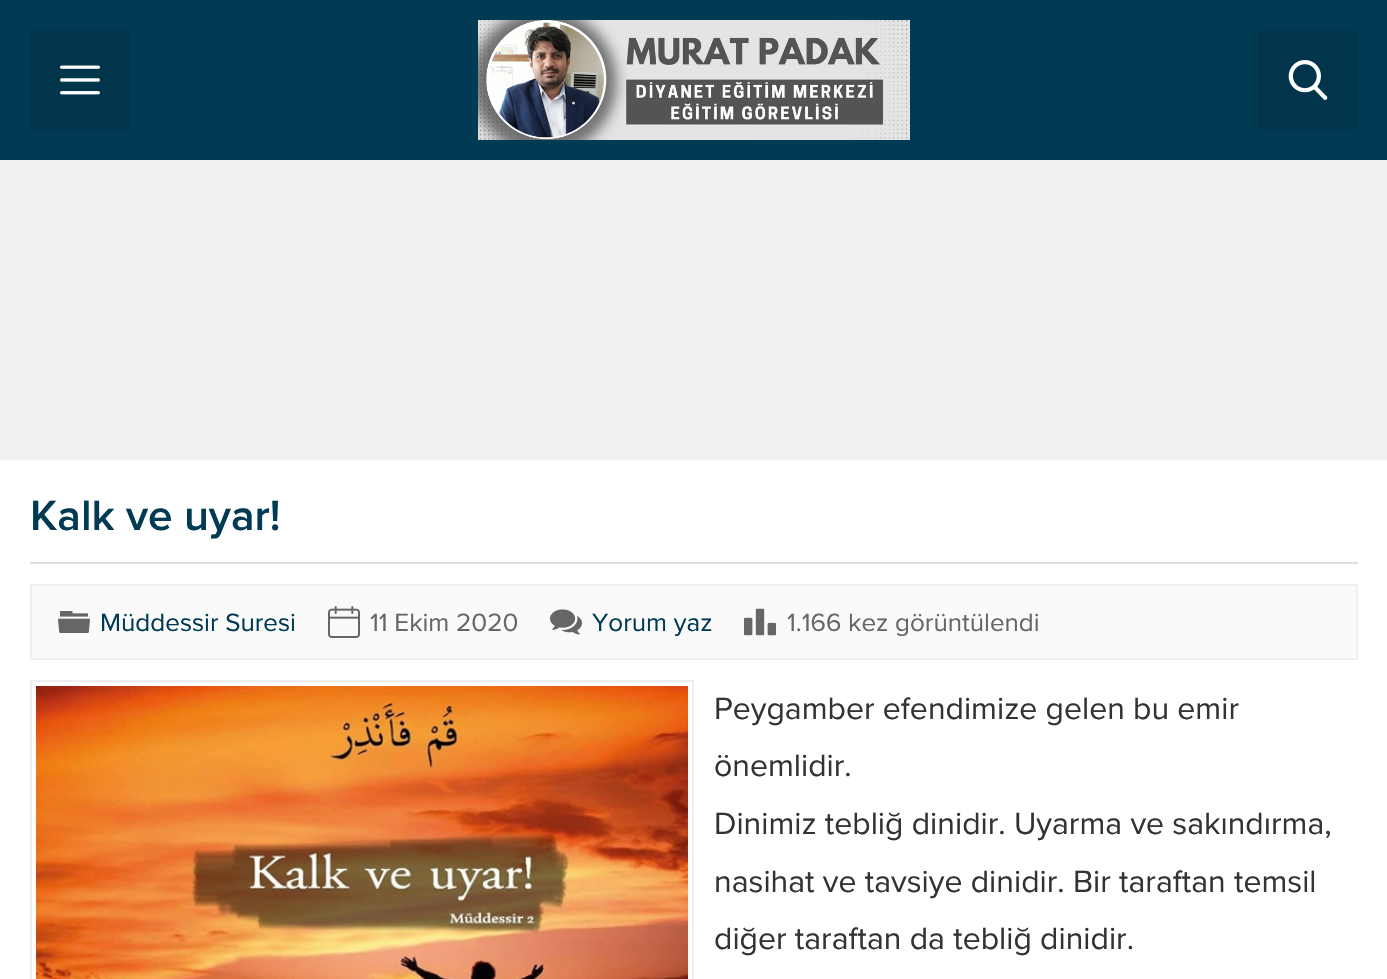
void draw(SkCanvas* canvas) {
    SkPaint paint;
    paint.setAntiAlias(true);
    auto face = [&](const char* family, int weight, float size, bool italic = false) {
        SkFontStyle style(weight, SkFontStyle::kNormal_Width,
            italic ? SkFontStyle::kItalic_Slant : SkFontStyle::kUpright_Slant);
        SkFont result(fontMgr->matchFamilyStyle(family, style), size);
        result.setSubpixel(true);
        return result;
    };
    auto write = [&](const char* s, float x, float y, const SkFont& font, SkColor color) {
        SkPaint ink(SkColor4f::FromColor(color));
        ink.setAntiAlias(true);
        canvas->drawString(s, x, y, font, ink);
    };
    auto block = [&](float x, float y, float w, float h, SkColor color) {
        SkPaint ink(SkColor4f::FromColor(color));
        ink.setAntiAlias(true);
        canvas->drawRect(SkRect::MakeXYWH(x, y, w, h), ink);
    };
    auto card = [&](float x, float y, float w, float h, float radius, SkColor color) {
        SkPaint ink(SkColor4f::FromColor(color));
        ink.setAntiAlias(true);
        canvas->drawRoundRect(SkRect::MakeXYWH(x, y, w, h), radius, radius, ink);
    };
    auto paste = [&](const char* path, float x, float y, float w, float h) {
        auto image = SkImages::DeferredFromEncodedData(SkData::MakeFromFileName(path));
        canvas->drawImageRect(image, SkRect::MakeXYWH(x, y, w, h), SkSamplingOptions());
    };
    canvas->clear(SkColorSetRGB(241, 241, 241));
    block(0, 0, 1387, 160, SkColorSetRGB(0, 59, 83));
    card(30, 30, 100, 100, 6, SkColorSetRGB(0, 53, 75));
    paste("pic1.png", 60, 65, 40, 30);
    paste("pic2.png", 478, 20, 432, 120);
    card(1258, 30, 100, 100, 6, SkColorSetRGB(0, 53, 75));
    paste("pic3.png", 1288, 60, 40, 40);
    block(0, 460, 1387, 519, SK_ColorWHITE);
    block(30, 562, 1328, 2, SkColorSetRGB(221, 221, 221));
    auto kFont1 = face("Proxima Nova", 600, 44);
    write("Kalk ve uyar!", 30, 530, kFont1, SkColorSetRGB(0, 59, 83));
    paint.setColor(SkColorSetRGB(250, 250, 250));
    canvas->drawRect(SkRect::MakeXYWH(31, 585, 1326, 74), paint);
    paint.setStyle(SkPaint::kStroke_Style);
    paint.setStrokeWidth(2);
    paint.setColor(SkColorSetRGB(240, 240, 240));
    canvas->drawRect(SkRect::MakeXYWH(31, 585, 1326, 74), paint);
    paste("pic4.png", 58, 611, 32, 22);
    auto kFont2 = face("Proxima Nova", 400, 26);
    write("Müddessir Suresi", 100, 631, kFont2, SkColorSetRGB(0, 59, 83));
    paste("pic5.png", 328, 606, 32, 32);
    write("11 Ekim 2020", 370, 631, kFont2, SkColorSetRGB(102, 102, 102));
    paste("pic6.png", 550, 609, 32, 26);
    write("Yorum yaz", 592, 631, kFont2, SkColorSetRGB(0, 59, 83));
    paste("pic7.png", 744, 608, 32, 28);
    write("1.166 kez görüntülendi", 787, 631, kFont2, SkColorSetRGB(102, 102, 102));
    paint.setColor(SkColorSetRGB(238, 238, 238));
    canvas->drawRect(SkRect::MakeXYWH(31, 681, 662, 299), paint);
    paste("pic8.png", 36, 686, 652, 293);
    auto kFont3 = face("Proxima Nova", 400, 32);
    write("Peygamber efendimize gelen bu emir", 714, 719, kFont3, SkColorSetRGB(51, 51, 51));
    write("önemlidir.", 714, 776, kFont3, SkColorSetRGB(51, 51, 51));
    write("Dinimiz tebliğ dinidir. Uyarma ve sakındırma,", 714, 834, kFont3, SkColorSetRGB(51, 51, 51));
    write("nasihat ve tavsiye dinidir. Bir taraftan temsil", 714, 892, kFont3, SkColorSetRGB(51, 51, 51));
    write("diğer taraftan da tebliğ dinidir.", 714, 949, kFont3, SkColorSetRGB(51, 51, 51));
}
